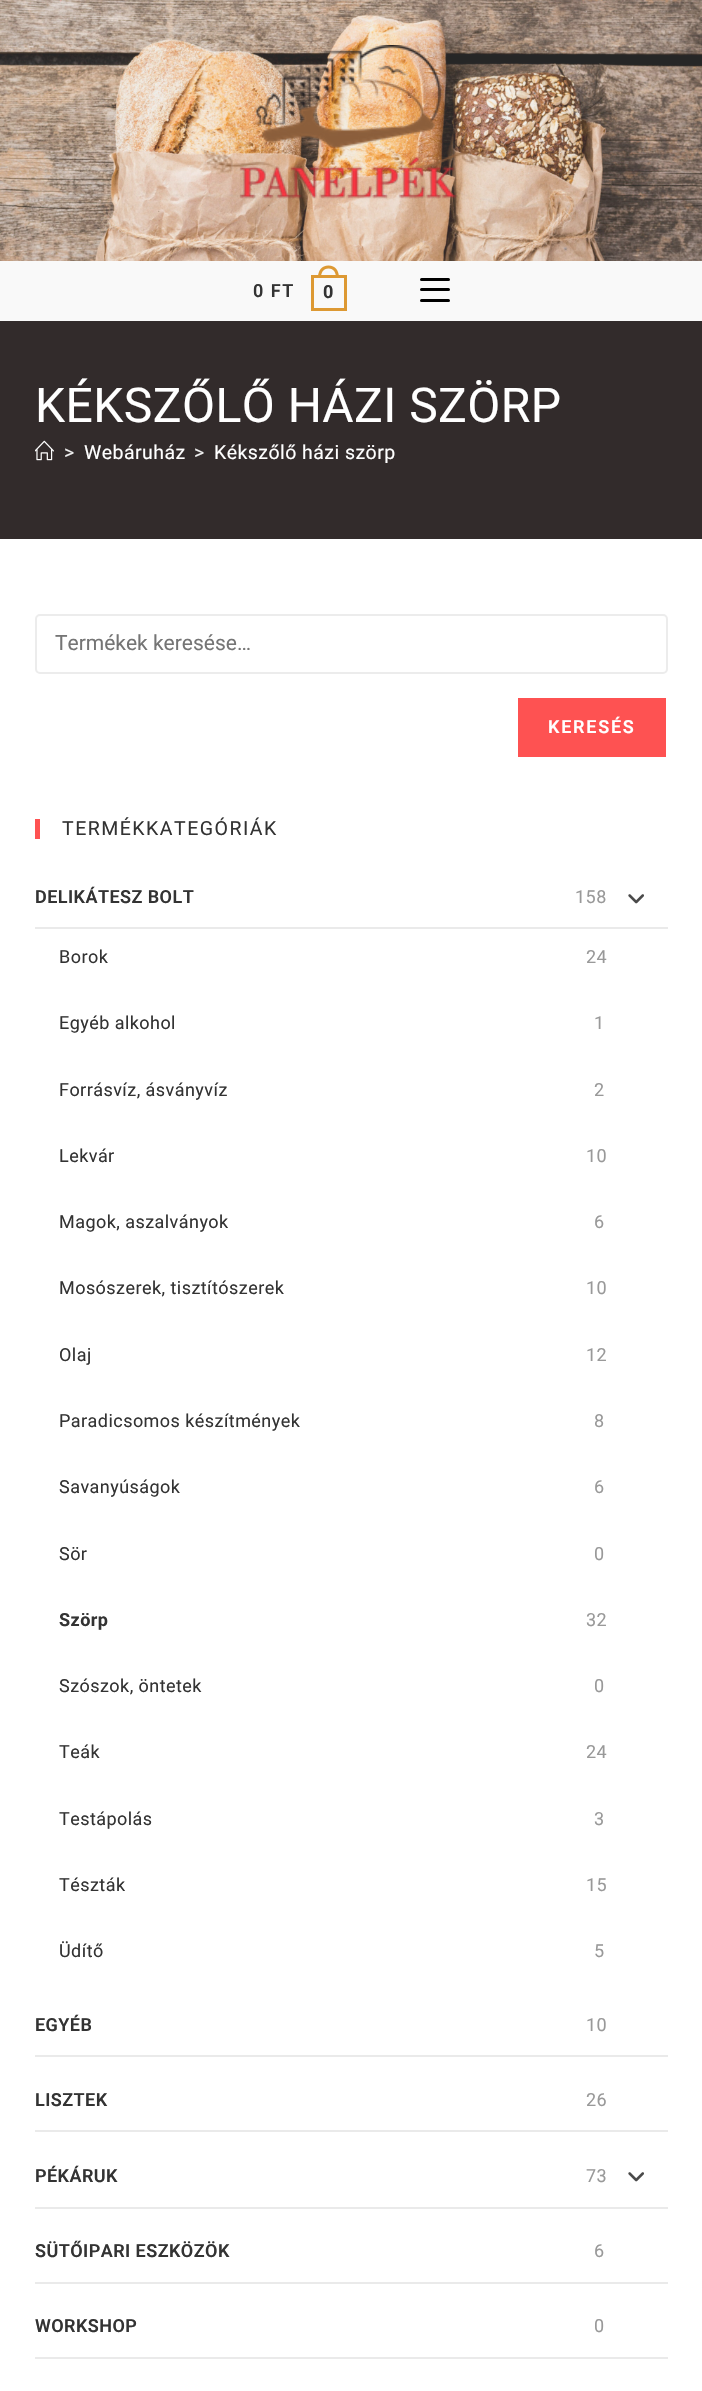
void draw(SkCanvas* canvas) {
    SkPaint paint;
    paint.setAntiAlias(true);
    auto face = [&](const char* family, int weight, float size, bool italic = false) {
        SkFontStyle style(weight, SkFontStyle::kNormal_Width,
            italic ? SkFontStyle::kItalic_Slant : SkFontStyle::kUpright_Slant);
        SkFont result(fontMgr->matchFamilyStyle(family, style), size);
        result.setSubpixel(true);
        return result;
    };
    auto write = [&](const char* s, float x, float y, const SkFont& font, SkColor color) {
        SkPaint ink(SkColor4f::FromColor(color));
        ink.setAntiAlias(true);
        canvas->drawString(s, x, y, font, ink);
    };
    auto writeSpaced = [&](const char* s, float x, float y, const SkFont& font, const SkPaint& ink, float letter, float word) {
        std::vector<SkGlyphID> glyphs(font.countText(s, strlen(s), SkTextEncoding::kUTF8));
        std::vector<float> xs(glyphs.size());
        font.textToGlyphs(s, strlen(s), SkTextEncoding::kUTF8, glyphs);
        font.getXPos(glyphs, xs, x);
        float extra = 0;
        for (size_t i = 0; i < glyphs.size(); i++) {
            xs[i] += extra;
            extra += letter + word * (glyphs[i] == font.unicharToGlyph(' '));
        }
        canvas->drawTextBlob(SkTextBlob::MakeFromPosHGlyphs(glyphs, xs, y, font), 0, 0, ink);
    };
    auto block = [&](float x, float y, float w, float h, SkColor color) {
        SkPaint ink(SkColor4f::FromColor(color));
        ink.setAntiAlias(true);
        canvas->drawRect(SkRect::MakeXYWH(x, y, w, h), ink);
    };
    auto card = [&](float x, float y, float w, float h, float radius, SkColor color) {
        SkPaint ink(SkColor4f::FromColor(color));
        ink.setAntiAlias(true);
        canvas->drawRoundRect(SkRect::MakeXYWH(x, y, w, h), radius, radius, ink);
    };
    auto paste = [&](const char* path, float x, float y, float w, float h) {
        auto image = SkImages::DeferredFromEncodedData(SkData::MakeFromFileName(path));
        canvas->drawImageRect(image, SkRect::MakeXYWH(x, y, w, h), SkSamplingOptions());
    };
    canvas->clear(SK_ColorWHITE);
    paste("pic1.png", 0, 0, 702, 261);
    paste("pic2.png", 201, 45, 300, 154);
    block(0, 261, 702, 60, SkColorSetRGB(249, 249, 249));
    auto kFont1 = face("Roboto", 600, 18);
    paint.setColor(SkColorSetRGB(51, 51, 51));
    writeSpaced("0 FT", 253, 297, kFont1, paint, 1.5f, 0);
    paint.setStyle(SkPaint::kStroke_Style);
    paint.setStrokeWidth(3);
    paint.setColor(SkColorSetRGB(221, 153, 51));
    canvas->drawRect(SkRect::MakeXYWH(312.5f, 276.5f, 33, 33), paint);
    paint.setStyle(SkPaint::kFill_Style);
    canvas->drawPath(SkPathBuilder(SkPathFillType::kEvenOdd).moveTo(328.5f, 265.5f).cubicTo(335.5f, 265.5f, 339, 271, 339, 277.5f).lineTo(318, 277.5f).cubicTo(318, 271, 321.5f, 265.5f, 328.5f, 265.5f).close().moveTo(328.5f, 268.5f).cubicTo(334, 268.5f, 336, 273, 336, 277.5f).lineTo(321, 277.5f).cubicTo(321, 273, 323, 268.5f, 328.5f, 268.5f).close().detach(), paint);
    auto kFont2 = face("Roboto", 700, 18);
    paint.setColor(SkColorSetRGB(51, 51, 51));
    writeSpaced("0", 323, 298, kFont2, paint, 1.5f, 0);
    card(420, 299, 30, 3, 1.5f, SK_ColorBLACK);
    card(420, 278, 30, 3, 1.5f, SK_ColorBLACK);
    card(420, 288, 30, 3, 1.5f, SK_ColorBLACK);
    block(0, 321, 702, 218, SkColorSetRGB(50, 43, 43));
    auto kFont3 = face("Roboto", 400, 48);
    paint.setColor(SK_ColorWHITE);
    writeSpaced("KÉKSZŐLŐ HÁZI SZÖRP", 35, 422, kFont3, paint, 0.45f, 0);
    paste("pic3.png", 35, 440, 19, 21);
    auto kFont4 = face("Roboto", 400, 19.5f);
    paint.setColor(SkColorSetRGB(239, 239, 239));
    writeSpaced(">", 64, 459, kFont4, paint, 0.45f, 0);
    paint.setColor(SK_ColorWHITE);
    writeSpaced("Webáruház", 84, 459, kFont4, paint, 0.45f, 0);
    paint.setColor(SkColorSetRGB(239, 239, 239));
    writeSpaced(">", 194, 459, kFont4, paint, 0.45f, 0);
    paint.setColor(SK_ColorWHITE);
    writeSpaced("Kékszőlő házi szörp", 214, 459, kFont4, paint, 0.45f, 0);
    paint.setStyle(SkPaint::kStroke_Style);
    paint.setStrokeWidth(2);
    paint.setColor(SkColorSetRGB(236, 236, 236));
    canvas->drawRoundRect(SkRect::MakeXYWH(36, 615, 631, 58), 4, 4, paint);
    auto kFont5 = face("Roboto", 400, 21);
    write("Termékek keresése…", 55, 650, kFont5, SkColorSetRGB(117, 117, 117));
    block(518, 698, 148, 59, SkColorSetRGB(254, 82, 82));
    paint.setStyle(SkPaint::kFill_Style);
    paint.setColor(SK_ColorWHITE);
    writeSpaced("KERESÉS", 548, 733, kFont1, paint, 1.75f, 0);
    block(35, 819, 5, 20, SkColorSetRGB(254, 82, 82));
    paint.setColor(SkColorSetRGB(51, 51, 51));
    writeSpaced("TERMÉKKATEGÓRIÁK", 62, 835, kFont4, paint, 1.5f, 0);
    block(35, 927, 633, 2, SkColorSetRGB(234, 234, 234));
    writeSpaced("DELIKÁTESZ BOLT", 35, 903, kFont1, paint, 0.45f, 0);
    auto kFont6 = face("Roboto", 400, 18);
    paint.setColor(SkColorSetRGB(153, 153, 153));
    writeSpaced("158", 575, 903, kFont6, paint, 0.45f, 0);
    paste("pic4.png", 628, 894, 16, 10);
    paint.setColor(SkColorSetRGB(51, 51, 51));
    writeSpaced("Borok", 59, 963, kFont6, paint, 0.45f, 0);
    paint.setColor(SkColorSetRGB(153, 153, 153));
    writeSpaced("24", 586, 963, kFont6, paint, 0.45f, 0);
    paint.setColor(SkColorSetRGB(51, 51, 51));
    writeSpaced("Egyéb alkohol", 59, 1029, kFont6, paint, 0.45f, 0);
    paint.setColor(SkColorSetRGB(153, 153, 153));
    writeSpaced("1", 594, 1029, kFont6, paint, 0.45f, 0);
    paint.setColor(SkColorSetRGB(51, 51, 51));
    writeSpaced("Forrásvíz, ásványvíz", 59, 1096, kFont6, paint, 0.45f, 0);
    paint.setColor(SkColorSetRGB(153, 153, 153));
    writeSpaced("2", 594, 1096, kFont6, paint, 0.45f, 0);
    paint.setColor(SkColorSetRGB(51, 51, 51));
    writeSpaced("Lekvár", 59, 1162, kFont6, paint, 0.45f, 0);
    paint.setColor(SkColorSetRGB(153, 153, 153));
    writeSpaced("10", 586, 1162, kFont6, paint, 0.45f, 0);
    paint.setColor(SkColorSetRGB(51, 51, 51));
    writeSpaced("Magok, aszalványok", 59, 1228, kFont6, paint, 0.45f, 0);
    paint.setColor(SkColorSetRGB(153, 153, 153));
    writeSpaced("6", 594, 1228, kFont6, paint, 0.45f, 0);
    paint.setColor(SkColorSetRGB(51, 51, 51));
    writeSpaced("Mosószerek, tisztítószerek", 59, 1294, kFont6, paint, 0.45f, 0);
    paint.setColor(SkColorSetRGB(153, 153, 153));
    writeSpaced("10", 586, 1294, kFont6, paint, 0.45f, 0);
    paint.setColor(SkColorSetRGB(51, 51, 51));
    writeSpaced("Olaj", 59, 1361, kFont6, paint, 0.45f, 0);
    paint.setColor(SkColorSetRGB(153, 153, 153));
    writeSpaced("12", 586, 1361, kFont6, paint, 0.45f, 0);
    paint.setColor(SkColorSetRGB(51, 51, 51));
    writeSpaced("Paradicsomos készítmények", 59, 1427, kFont6, paint, 0.45f, 0);
    paint.setColor(SkColorSetRGB(153, 153, 153));
    writeSpaced("8", 594, 1427, kFont6, paint, 0.45f, 0);
    paint.setColor(SkColorSetRGB(51, 51, 51));
    writeSpaced("Savanyúságok", 59, 1493, kFont6, paint, 0.45f, 0);
    paint.setColor(SkColorSetRGB(153, 153, 153));
    writeSpaced("6", 594, 1493, kFont6, paint, 0.45f, 0);
    paint.setColor(SkColorSetRGB(51, 51, 51));
    writeSpaced("Sör", 59, 1560, kFont6, paint, 0.45f, 0);
    paint.setColor(SkColorSetRGB(153, 153, 153));
    writeSpaced("0", 594, 1560, kFont6, paint, 0.45f, 0);
    paint.setColor(SkColorSetRGB(51, 51, 51));
    writeSpaced("Szörp", 59, 1626, kFont2, paint, 0.45f, 0);
    paint.setColor(SkColorSetRGB(153, 153, 153));
    writeSpaced("32", 586, 1626, kFont6, paint, 0.45f, 0);
    paint.setColor(SkColorSetRGB(51, 51, 51));
    writeSpaced("Szószok, öntetek", 59, 1692, kFont6, paint, 0.45f, 0);
    paint.setColor(SkColorSetRGB(153, 153, 153));
    writeSpaced("0", 594, 1692, kFont6, paint, 0.45f, 0);
    paint.setColor(SkColorSetRGB(51, 51, 51));
    writeSpaced("Teák", 59, 1758, kFont6, paint, 0.45f, 0);
    paint.setColor(SkColorSetRGB(153, 153, 153));
    writeSpaced("24", 586, 1758, kFont6, paint, 0.45f, 0);
    paint.setColor(SkColorSetRGB(51, 51, 51));
    writeSpaced("Testápolás", 59, 1825, kFont6, paint, 0.45f, 0);
    paint.setColor(SkColorSetRGB(153, 153, 153));
    writeSpaced("3", 594, 1825, kFont6, paint, 0.45f, 0);
    paint.setColor(SkColorSetRGB(51, 51, 51));
    writeSpaced("Tészták", 59, 1891, kFont6, paint, 0.45f, 0);
    paint.setColor(SkColorSetRGB(153, 153, 153));
    writeSpaced("15", 586, 1891, kFont6, paint, 0.45f, 0);
    paint.setColor(SkColorSetRGB(51, 51, 51));
    writeSpaced("Üdítő", 59, 1957, kFont6, paint, 0.45f, 0);
    paint.setColor(SkColorSetRGB(153, 153, 153));
    writeSpaced("5", 594, 1957, kFont6, paint, 0.45f, 0);
    block(35, 2055, 633, 2, SkColorSetRGB(234, 234, 234));
    paint.setColor(SkColorSetRGB(51, 51, 51));
    writeSpaced("EGYÉB", 35, 2031, kFont1, paint, 0.45f, 0);
    paint.setColor(SkColorSetRGB(153, 153, 153));
    writeSpaced("10", 586, 2031, kFont6, paint, 0.45f, 0);
    block(35, 2130, 633, 2, SkColorSetRGB(234, 234, 234));
    paint.setColor(SkColorSetRGB(51, 51, 51));
    writeSpaced("LISZTEK", 35, 2106, kFont1, paint, 0.45f, 0);
    paint.setColor(SkColorSetRGB(153, 153, 153));
    writeSpaced("26", 586, 2106, kFont6, paint, 0.45f, 0);
    block(35, 2207, 633, 2, SkColorSetRGB(234, 234, 234));
    paint.setColor(SkColorSetRGB(51, 51, 51));
    writeSpaced("PÉKÁRUK", 35, 2182, kFont1, paint, 0.45f, 0);
    paint.setColor(SkColorSetRGB(153, 153, 153));
    writeSpaced("73", 586, 2182, kFont6, paint, 0.45f, 0);
    paste("pic4.png", 628, 2172, 16, 10);
    block(35, 2282, 633, 2, SkColorSetRGB(234, 234, 234));
    paint.setColor(SkColorSetRGB(51, 51, 51));
    writeSpaced("SÜTŐIPARI ESZKÖZÖK", 35, 2257, kFont1, paint, 0.45f, 0);
    paint.setColor(SkColorSetRGB(153, 153, 153));
    writeSpaced("6", 594, 2257, kFont6, paint, 0.45f, 0);
    block(35, 2357, 633, 2, SkColorSetRGB(234, 234, 234));
    paint.setColor(SkColorSetRGB(51, 51, 51));
    writeSpaced("WORKSHOP", 35, 2332, kFont1, paint, 0.45f, 0);
    paint.setColor(SkColorSetRGB(153, 153, 153));
    writeSpaced("0", 594, 2332, kFont6, paint, 0.45f, 0);
}
